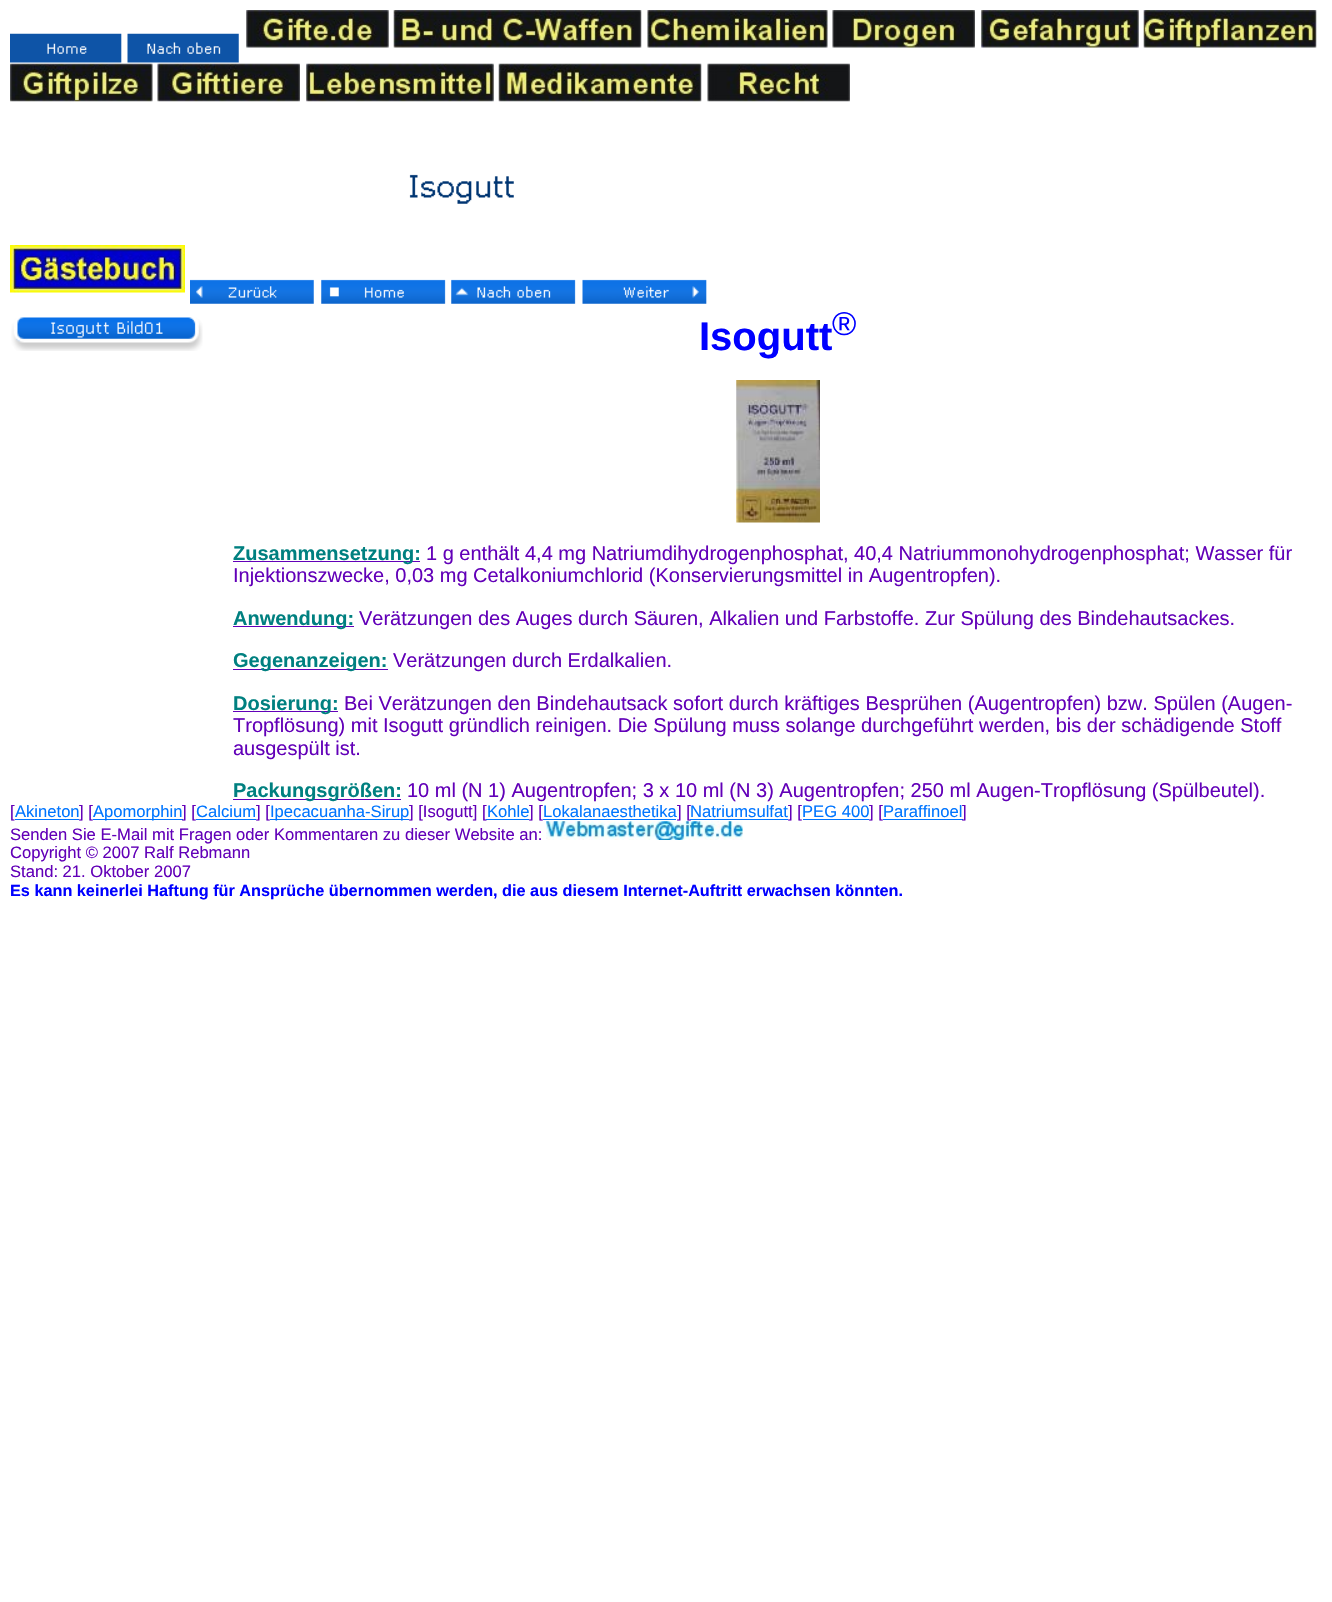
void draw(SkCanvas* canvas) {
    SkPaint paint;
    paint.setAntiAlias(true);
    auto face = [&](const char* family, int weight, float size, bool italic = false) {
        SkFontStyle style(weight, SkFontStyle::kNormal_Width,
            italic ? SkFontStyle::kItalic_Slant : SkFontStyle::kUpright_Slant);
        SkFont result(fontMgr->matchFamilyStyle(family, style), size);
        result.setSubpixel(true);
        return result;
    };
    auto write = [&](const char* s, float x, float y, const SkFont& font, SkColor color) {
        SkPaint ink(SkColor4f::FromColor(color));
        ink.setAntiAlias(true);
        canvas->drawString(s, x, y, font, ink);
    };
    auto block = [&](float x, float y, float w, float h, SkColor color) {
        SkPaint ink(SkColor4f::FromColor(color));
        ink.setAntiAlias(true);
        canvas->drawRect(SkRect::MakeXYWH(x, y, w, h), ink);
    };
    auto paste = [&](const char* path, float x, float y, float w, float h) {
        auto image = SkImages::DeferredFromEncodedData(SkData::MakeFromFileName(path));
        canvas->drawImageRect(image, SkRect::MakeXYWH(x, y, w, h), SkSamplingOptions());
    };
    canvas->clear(SK_ColorWHITE);
    paste("pic1.png", 10, 33, 112, 30);
    paste("pic2.png", 127, 33, 112, 30);
    paste("pic3.png", 246, 10, 143, 38);
    paste("pic4.png", 393, 10, 249, 38);
    paste("pic5.png", 647, 10, 181, 38);
    paste("pic6.png", 832, 10, 143, 38);
    paste("pic7.png", 981, 10, 158, 38);
    paste("pic8.png", 1143, 10, 174, 38);
    paste("pic9.png", 10, 63, 143, 39);
    paste("pic10.png", 157, 63, 143, 39);
    paste("pic11.png", 306, 63, 188, 39);
    paste("pic12.png", 498, 63, 204, 39);
    paste("pic13.png", 707, 63, 143, 39);
    paste("pic14.png", 409, 174, 105, 30);
    paste("pic15.png", 10, 245, 175, 48);
    paste("pic16.png", 190, 279, 124, 25);
    paste("pic17.png", 321, 279, 125, 25);
    paste("pic18.png", 451, 279, 125, 25);
    paste("pic19.png", 582, 279, 125, 25);
    paste("pic20.png", 11, 317, 192, 34);
    auto kFont1 = face("Liberation Sans", 700, 40);
    write("Isogutt", 699, 350, kFont1, SkColorSetRGB(0, 0, 255));
    auto kFont2 = face("Liberation Sans", 400, 33);
    write("®", 832, 335, kFont2, SkColorSetRGB(0, 0, 255));
    paste("pic21.png", 736, 380, 84, 143);
    block(233, 561, 187, 1, SkColorSetRGB(98, 0, 184));
    auto kFont3 = face("Liberation Sans", 700, 20);
    write("Zusammensetzung:", 233, 560, kFont3, SkColorSetRGB(0, 128, 128));
    auto kFont4 = face("Liberation Sans", 400, 20);
    write("1 g enthält 4,4 mg Natriumdihydrogenphosphat, 40,4 Natriummonohydrogenphosphat; Wasser für", 426, 560, kFont4, SkColorSetRGB(98, 0, 184));
    write("Injektionszwecke, 0,03 mg Cetalkoniumchlorid (Konservierungsmittel in Augentropfen).", 233, 582, kFont4, SkColorSetRGB(98, 0, 184));
    block(233, 626, 121, 1, SkColorSetRGB(98, 0, 184));
    write("Anwendung:", 233, 625, kFont3, SkColorSetRGB(0, 128, 128));
    write("Verätzungen des Auges durch Säuren, Alkalien und Farbstoffe. Zur Spülung des Bindehautsackes.", 359, 625, kFont4, SkColorSetRGB(98, 0, 184));
    block(233, 669, 155, 1, SkColorSetRGB(98, 0, 184));
    write("Gegenanzeigen:", 233, 667, kFont3, SkColorSetRGB(0, 128, 128));
    write("Verätzungen durch Erdalkalien.", 393, 667, kFont4, SkColorSetRGB(98, 0, 184));
    block(233, 711, 105, 1, SkColorSetRGB(98, 0, 184));
    write("Dosierung:", 233, 710, kFont3, SkColorSetRGB(0, 128, 128));
    write("Bei Verätzungen den Bindehautsack sofort durch kräftiges Besprühen (Augentropfen) bzw. Spülen (Augen-", 344, 710, kFont4, SkColorSetRGB(98, 0, 184));
    write("Tropflösung) mit Isogutt gründlich reinigen. Die Spülung muss solange durchgeführt werden, bis der schädigende Stoff", 233, 732, kFont4, SkColorSetRGB(98, 0, 184));
    write("ausgespült ist.", 233, 755, kFont4, SkColorSetRGB(98, 0, 184));
    block(233, 799, 168, 1, SkColorSetRGB(98, 0, 184));
    write("Packungsgrößen:", 233, 797, kFont3, SkColorSetRGB(0, 128, 128));
    write("10 ml (N 1) Augentropfen; 3 x 10 ml (N 3) Augentropfen; 250 ml Augen-Tropflösung (Spülbeutel).", 407, 797, kFont4, SkColorSetRGB(98, 0, 184));
    auto kFont5 = face("Liberation Sans", 400, 16.6f);
    write("[", 10, 817, kFont5, SkColorSetRGB(98, 0, 184));
    block(15, 819, 64, 1, SkColorSetRGB(0, 117, 255));
    write("Akineton", 15, 817, kFont5, SkColorSetRGB(0, 117, 255));
    write("] [", 79, 817, kFont5, SkColorSetRGB(98, 0, 184));
    block(93, 819, 90, 1, SkColorSetRGB(0, 117, 255));
    write("Apomorphin", 93, 817, kFont5, SkColorSetRGB(0, 117, 255));
    write("] [", 182, 817, kFont5, SkColorSetRGB(98, 0, 184));
    write("Calcium", 196, 817, kFont5, SkColorSetRGB(0, 117, 255));
    write("] [", 256, 817, kFont5, SkColorSetRGB(98, 0, 184));
    block(196, 819, 60, 1, SkColorSetRGB(0, 117, 255));
    block(270, 819, 139, 1, SkColorSetRGB(0, 117, 255));
    write("Ipecacuanha-Sirup", 270, 817, kFont5, SkColorSetRGB(0, 117, 255));
    write("] [Isogutt] [", 409, 817, kFont5, SkColorSetRGB(98, 0, 184));
    write("Kohle", 487, 817, kFont5, SkColorSetRGB(0, 117, 255));
    write("] [", 529, 817, kFont5, SkColorSetRGB(98, 0, 184));
    block(486, 819, 43, 1, SkColorSetRGB(0, 117, 255));
    write("Lokalanaesthetika", 543, 817, kFont5, SkColorSetRGB(0, 117, 255));
    write("] [", 677, 817, kFont5, SkColorSetRGB(98, 0, 184));
    block(543, 819, 133, 1, SkColorSetRGB(0, 117, 255));
    write("Natriumsulfat", 690, 817, kFont5, SkColorSetRGB(0, 117, 255));
    write("] [", 788, 817, kFont5, SkColorSetRGB(98, 0, 184));
    block(690, 819, 98, 1, SkColorSetRGB(0, 117, 255));
    write("PEG 400", 802, 817, kFont5, SkColorSetRGB(0, 117, 255));
    write("] [", 869, 817, kFont5, SkColorSetRGB(98, 0, 184));
    block(803, 819, 66, 1, SkColorSetRGB(0, 117, 255));
    write("Paraffinoel", 883, 817, kFont5, SkColorSetRGB(0, 117, 255));
    block(883, 819, 80, 1, SkColorSetRGB(0, 117, 255));
    write("]", 962, 817, kFont5, SkColorSetRGB(98, 0, 184));
    write("Senden Sie E-Mail mit Fragen oder Kommentaren zu dieser Website an:", 10, 840, kFont5, SkColorSetRGB(98, 0, 184));
    paste("pic22.png", 546, 821, 197, 19);
    write("Copyright © 2007 Ralf Rebmann", 10, 858, kFont5, SkColorSetRGB(98, 0, 184));
    write("Stand: 21. Oktober 2007", 10, 877, kFont5, SkColorSetRGB(98, 0, 184));
    auto kFont6 = face("Liberation Sans", 700, 16.25f);
    write("Es kann keinerlei Haftung für Ansprüche übernommen werden, die aus diesem Internet-Auftritt erwachsen könnten.", 10, 896, kFont6, SkColorSetRGB(0, 0, 255));
}
